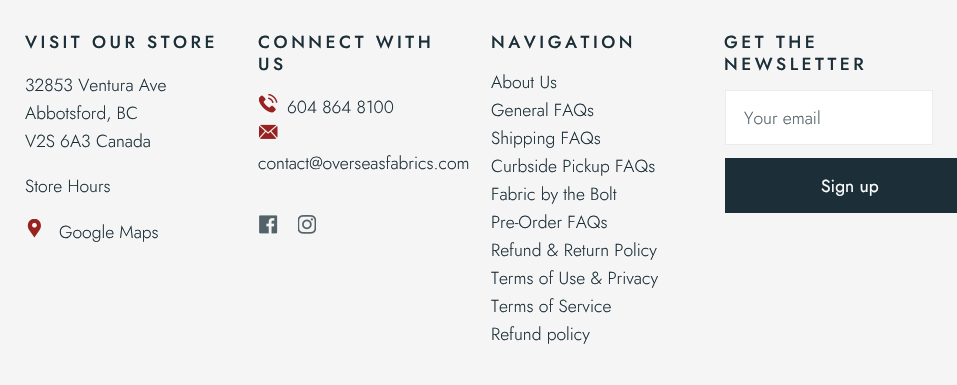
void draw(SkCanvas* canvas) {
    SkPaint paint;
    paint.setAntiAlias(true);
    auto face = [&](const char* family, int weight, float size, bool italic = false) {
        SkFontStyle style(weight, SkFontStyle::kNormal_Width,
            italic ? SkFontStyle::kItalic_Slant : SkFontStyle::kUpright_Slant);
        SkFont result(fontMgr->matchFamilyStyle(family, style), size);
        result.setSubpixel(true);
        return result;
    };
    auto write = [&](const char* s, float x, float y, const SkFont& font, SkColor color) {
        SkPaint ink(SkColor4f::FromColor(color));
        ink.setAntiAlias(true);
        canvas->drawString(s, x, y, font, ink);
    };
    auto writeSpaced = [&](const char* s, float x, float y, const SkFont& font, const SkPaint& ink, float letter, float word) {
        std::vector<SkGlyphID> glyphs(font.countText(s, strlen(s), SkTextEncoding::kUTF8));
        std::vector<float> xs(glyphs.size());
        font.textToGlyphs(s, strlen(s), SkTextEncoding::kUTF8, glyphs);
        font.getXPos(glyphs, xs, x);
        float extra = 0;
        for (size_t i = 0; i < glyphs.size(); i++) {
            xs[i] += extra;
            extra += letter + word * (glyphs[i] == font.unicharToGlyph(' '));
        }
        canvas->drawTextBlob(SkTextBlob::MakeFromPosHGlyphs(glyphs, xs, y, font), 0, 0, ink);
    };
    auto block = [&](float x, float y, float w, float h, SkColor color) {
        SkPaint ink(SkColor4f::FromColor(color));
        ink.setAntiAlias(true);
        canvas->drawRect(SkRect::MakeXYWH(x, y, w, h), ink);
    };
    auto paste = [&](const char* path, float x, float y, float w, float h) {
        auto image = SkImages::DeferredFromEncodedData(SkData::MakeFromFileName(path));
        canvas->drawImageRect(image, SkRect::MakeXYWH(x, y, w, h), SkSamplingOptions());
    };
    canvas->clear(SkColorSetRGB(245, 245, 245));
    auto kFont1 = face("Jost", 500, 17.5f);
    paint.setColor(SkColorSetRGB(28, 47, 56));
    writeSpaced("VISIT OUR STORE", 25, 48, kFont1, paint, 3.5f, 0);
    auto kFont2 = face("Jost", 300, 17.5f);
    write("32853 Ventura Ave", 25, 91, kFont2, SkColorSetRGB(28, 47, 56));
    write("Abbotsford, BC", 25, 119, kFont2, SkColorSetRGB(28, 47, 56));
    write("V2S 6A3 Canada", 25, 147, kFont2, SkColorSetRGB(28, 47, 56));
    write("Store Hours", 25, 192, kFont2, SkColorSetRGB(28, 47, 56));
    paste("pic1.png", 27, 219, 14, 19);
    write("Google Maps", 59, 238, kFont2, SkColorSetRGB(28, 47, 56));
    writeSpaced("CONNECT WITH", 258, 48, kFont1, paint, 3.5f, 0);
    writeSpaced("US", 258, 70, kFont1, paint, 3.5f, 0);
    paste("pic2.png", 259, 94, 19, 19);
    write("604 864 8100", 287, 113, kFont2, SkColorSetRGB(28, 47, 56));
    paste("pic3.png", 259, 124, 19, 15);
    write("contact@overseasfabrics.com", 258, 169, kFont2, SkColorSetRGB(28, 47, 56));
    paste("pic4.png", 259, 215, 19, 19);
    paste("pic5.png", 298, 215, 18, 19);
    writeSpaced("NAVIGATION", 491, 48, kFont1, paint, 3.5f, 0);
    write("About Us", 491, 88, kFont2, SkColorSetRGB(28, 47, 56));
    write("General FAQs", 491, 116, kFont2, SkColorSetRGB(28, 47, 56));
    write("Shipping FAQs", 491, 144, kFont2, SkColorSetRGB(28, 47, 56));
    write("Curbside Pickup FAQs", 491, 172, kFont2, SkColorSetRGB(28, 47, 56));
    write("Fabric by the Bolt", 491, 200, kFont2, SkColorSetRGB(28, 47, 56));
    write("Pre-Order FAQs", 491, 228, kFont2, SkColorSetRGB(28, 47, 56));
    write("Refund & Return Policy", 491, 256, kFont2, SkColorSetRGB(28, 47, 56));
    write("Terms of Use & Privacy", 491, 284, kFont2, SkColorSetRGB(28, 47, 56));
    write("Terms of Service", 491, 312, kFont2, SkColorSetRGB(28, 47, 56));
    write("Refund policy", 491, 340, kFont2, SkColorSetRGB(28, 47, 56));
    writeSpaced("GET THE", 724, 48, kFont1, paint, 3.5f, 0);
    writeSpaced("NEWSLETTER", 724, 70, kFont1, paint, 3.5f, 0);
    paint.setColor(SK_ColorWHITE);
    canvas->drawRect(SkRect::MakeXYWH(725.5f, 90.5f, 207, 54), paint);
    paint.setStyle(SkPaint::kStroke_Style);
    paint.setStrokeWidth(1);
    paint.setColor(SkColorSetRGB(235, 235, 235));
    canvas->drawRect(SkRect::MakeXYWH(725.5f, 90.5f, 207, 54), paint);
    write("Your email", 744, 124, kFont2, SkColorSetRGB(84, 99, 105));
    block(725, 158, 232, 55, SkColorSetRGB(28, 47, 56));
    auto kFont3 = face("Jost", 400, 17.5f);
    write("Sign up", 821, 192, kFont3, SK_ColorWHITE);
}
